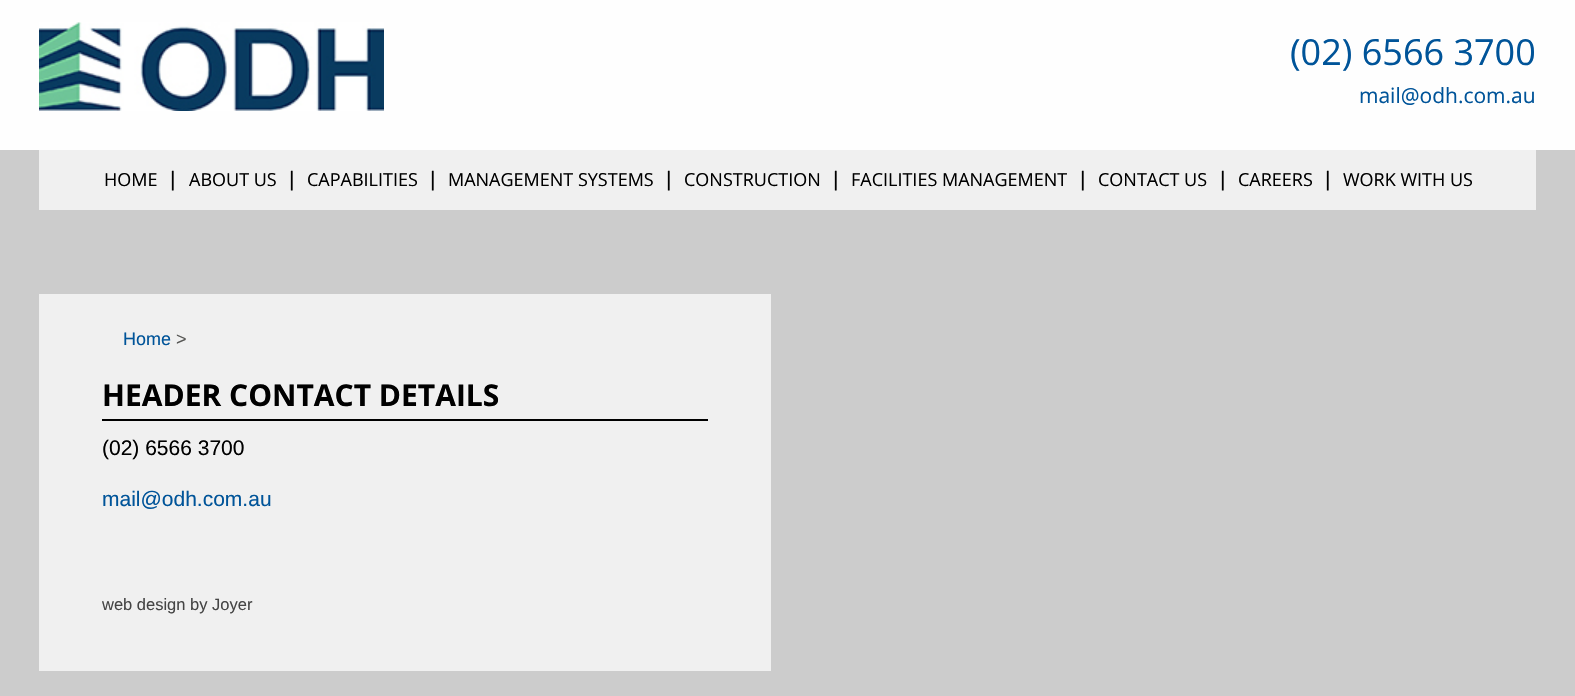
void draw(SkCanvas* canvas) {
    SkPaint paint;
    paint.setAntiAlias(true);
    auto face = [&](const char* family, int weight, float size, bool italic = false) {
        SkFontStyle style(weight, SkFontStyle::kNormal_Width,
            italic ? SkFontStyle::kItalic_Slant : SkFontStyle::kUpright_Slant);
        SkFont result(fontMgr->matchFamilyStyle(family, style), size);
        result.setSubpixel(true);
        return result;
    };
    auto write = [&](const char* s, float x, float y, const SkFont& font, SkColor color) {
        SkPaint ink(SkColor4f::FromColor(color));
        ink.setAntiAlias(true);
        canvas->drawString(s, x, y, font, ink);
    };
    auto block = [&](float x, float y, float w, float h, SkColor color) {
        SkPaint ink(SkColor4f::FromColor(color));
        ink.setAntiAlias(true);
        canvas->drawRect(SkRect::MakeXYWH(x, y, w, h), ink);
    };
    auto paste = [&](const char* path, float x, float y, float w, float h) {
        auto image = SkImages::DeferredFromEncodedData(SkData::MakeFromFileName(path));
        canvas->drawImageRect(image, SkRect::MakeXYWH(x, y, w, h), SkSamplingOptions());
    };
    canvas->clear(SkColorSetRGB(204, 204, 204));
    block(0, 0, 1575, 150, SkColorSetRGB(254, 254, 254));
    paste("pic1.png", 39, 22, 345, 89);
    auto kFont1 = face("Open Sans", 400, 36);
    write("(02) 6566 3700", 1290, 65, kFont1, SkColorSetRGB(0, 84, 153));
    auto kFont2 = face("Open Sans", 400, 21);
    write("mail@odh.com.au", 1359, 103, kFont2, SkColorSetRGB(0, 84, 153));
    block(39, 150, 1497, 60, SkColorSetRGB(240, 240, 240));
    auto kFont3 = face("Open Sans", 400, 18);
    write("HOME", 104, 186, kFont3, SK_ColorBLACK);
    auto kFont4 = face("Liberation Sans", 400, 21);
    write("|", 170, 186, kFont4, SK_ColorBLACK);
    write("ABOUT US", 189, 186, kFont3, SK_ColorBLACK);
    write("|", 289, 186, kFont4, SK_ColorBLACK);
    write("CAPABILITIES", 307, 186, kFont3, SK_ColorBLACK);
    write("|", 430, 186, kFont4, SK_ColorBLACK);
    write("MANAGEMENT SYSTEMS", 448, 186, kFont3, SK_ColorBLACK);
    write("|", 666, 186, kFont4, SK_ColorBLACK);
    write("CONSTRUCTION", 684, 186, kFont3, SK_ColorBLACK);
    write("|", 833, 186, kFont4, SK_ColorBLACK);
    write("FACILITIES MANAGEMENT", 851, 186, kFont3, SK_ColorBLACK);
    write("|", 1080, 186, kFont4, SK_ColorBLACK);
    write("CONTACT US", 1098, 186, kFont3, SK_ColorBLACK);
    write("|", 1220, 186, kFont4, SK_ColorBLACK);
    write("CAREERS", 1238, 186, kFont3, SK_ColorBLACK);
    write("|", 1325, 186, kFont4, SK_ColorBLACK);
    write("WORK WITH US", 1343, 186, kFont3, SK_ColorBLACK);
    block(39, 294, 732, 377, SkColorSetRGB(240, 240, 240));
    auto kFont5 = face("Liberation Sans", 400, 18);
    write("Home", 123, 345, kFont5, SkColorSetRGB(0, 84, 153));
    write(">", 176, 345, kFont5, SkColorSetRGB(87, 87, 85));
    block(102, 419, 606, 2, SK_ColorBLACK);
    auto kFont6 = face("Open Sans", 700, 30);
    write("HEADER CONTACT DETAILS", 102, 406, kFont6, SK_ColorBLACK);
    write("(02) 6566 3700", 102, 455, kFont4, SK_ColorBLACK);
    write("mail@odh.com.au", 102, 506, kFont4, SkColorSetRGB(0, 84, 153));
    auto kFont7 = face("Liberation Sans", 400, 16.5f);
    write("web design by Joyer", 102, 610, kFont7, SkColorSetRGB(69, 69, 69));
}
